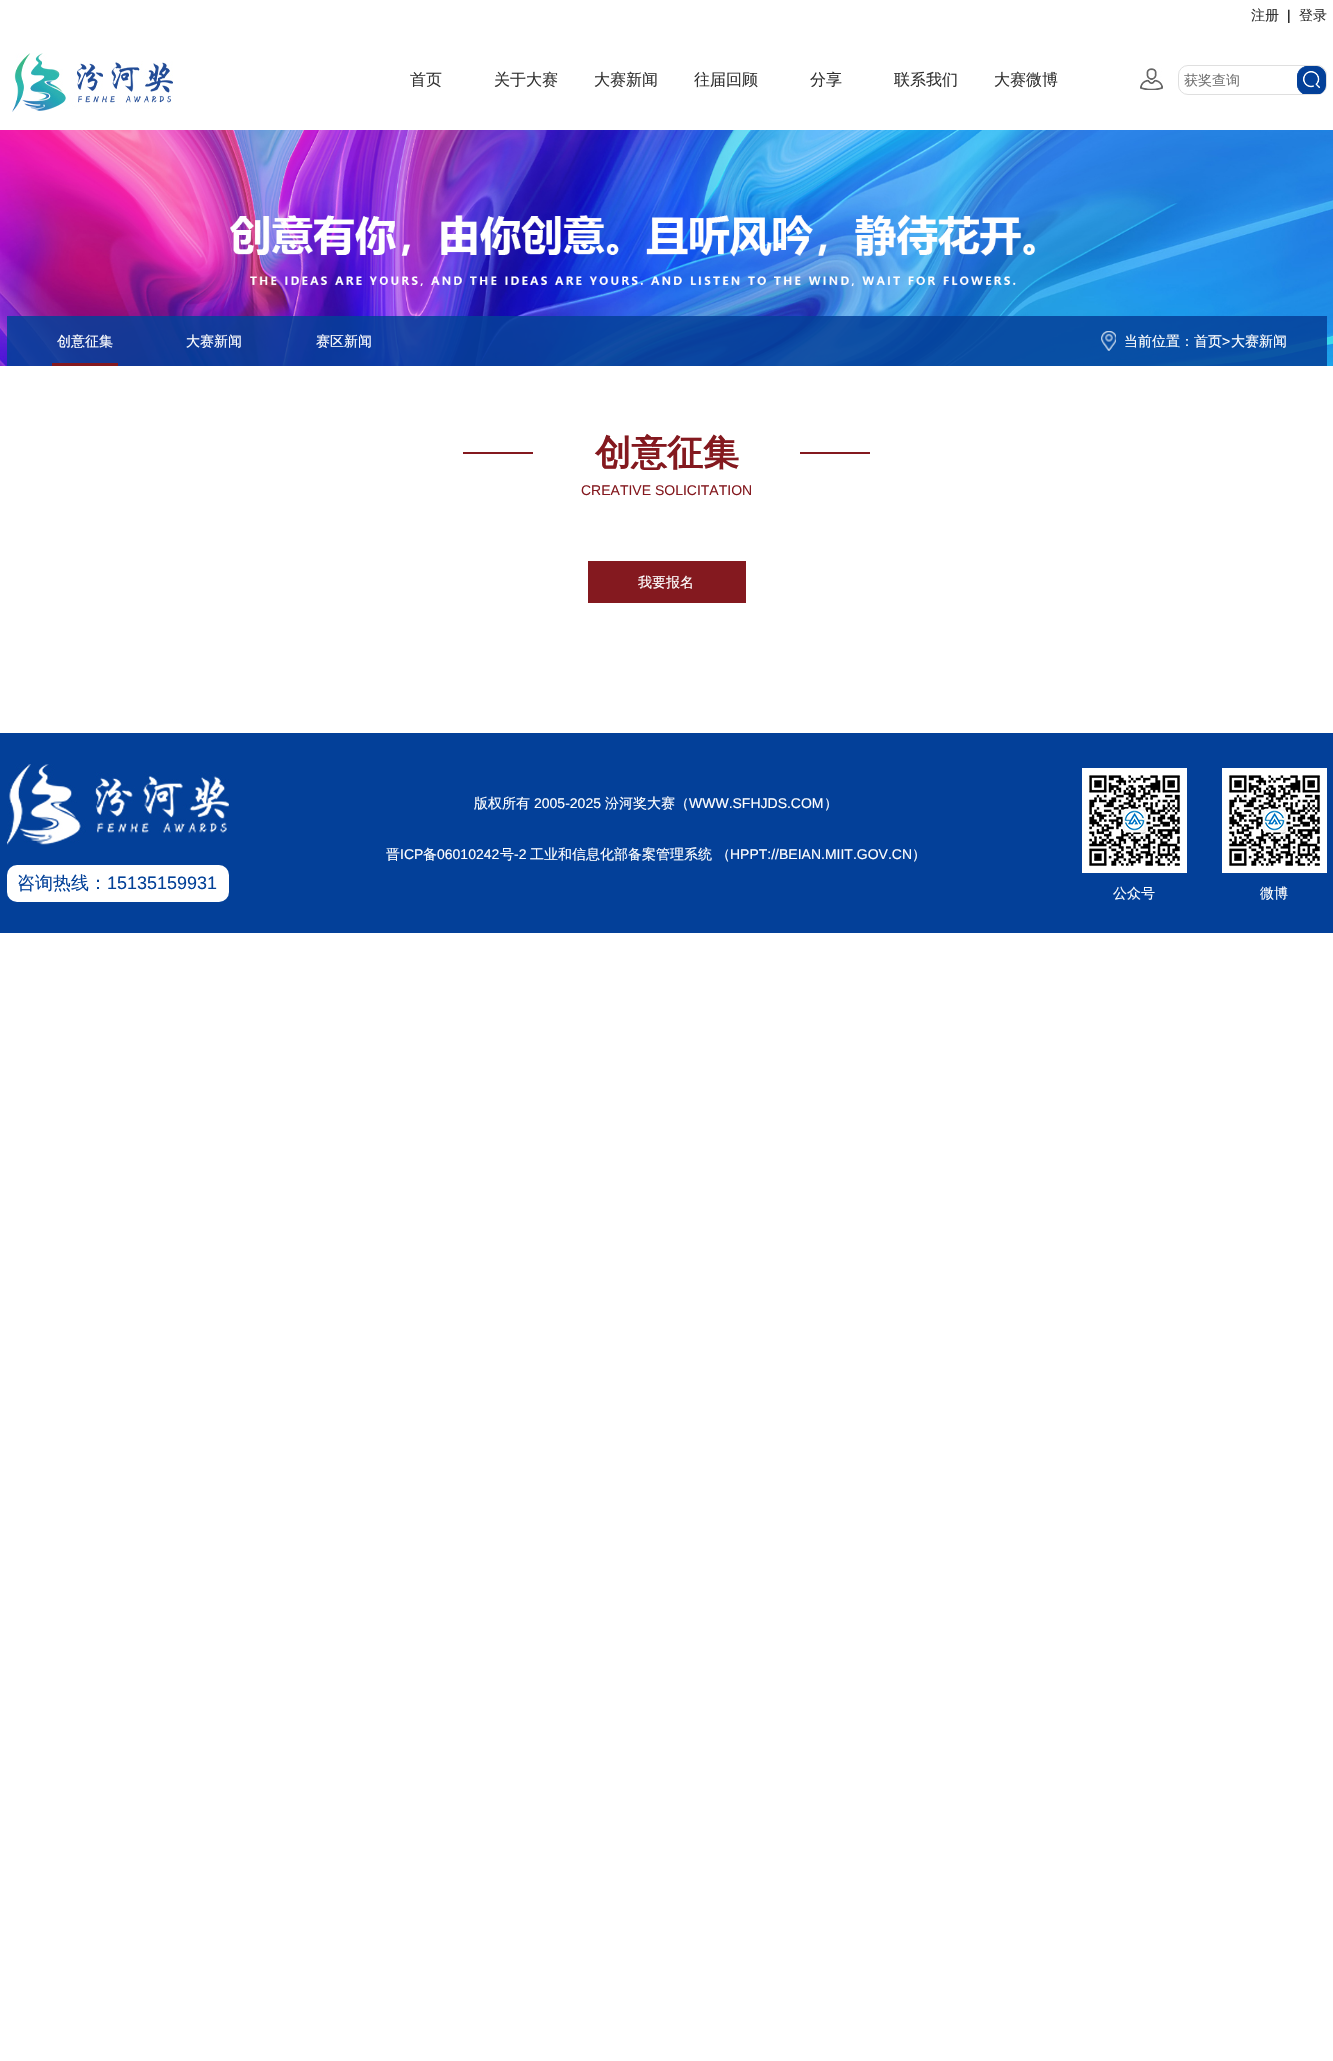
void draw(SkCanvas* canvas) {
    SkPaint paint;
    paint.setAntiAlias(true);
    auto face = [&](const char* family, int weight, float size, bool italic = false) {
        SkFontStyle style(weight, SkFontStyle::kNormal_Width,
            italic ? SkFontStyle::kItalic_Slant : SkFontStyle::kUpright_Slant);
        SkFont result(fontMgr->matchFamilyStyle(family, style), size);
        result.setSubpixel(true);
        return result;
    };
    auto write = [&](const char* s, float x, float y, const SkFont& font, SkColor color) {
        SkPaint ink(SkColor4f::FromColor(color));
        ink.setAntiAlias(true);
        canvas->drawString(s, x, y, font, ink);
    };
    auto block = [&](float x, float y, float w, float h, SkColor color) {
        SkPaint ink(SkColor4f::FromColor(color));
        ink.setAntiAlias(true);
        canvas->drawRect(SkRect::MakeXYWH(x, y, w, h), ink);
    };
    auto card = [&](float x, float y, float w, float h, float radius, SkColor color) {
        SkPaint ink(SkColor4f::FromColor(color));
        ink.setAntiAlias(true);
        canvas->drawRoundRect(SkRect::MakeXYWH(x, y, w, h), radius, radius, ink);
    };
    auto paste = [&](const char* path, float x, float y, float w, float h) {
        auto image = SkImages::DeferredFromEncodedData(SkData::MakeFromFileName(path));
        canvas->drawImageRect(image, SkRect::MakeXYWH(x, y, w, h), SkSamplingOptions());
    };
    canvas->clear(SK_ColorWHITE);
    auto kFont1 = face("WenQuanYi Zen Hei", 500, 14);
    write("注册", 1251, 20, kFont1, SkColorSetRGB(51, 51, 51));
    auto kFont2 = face("Liberation Sans", 400, 14);
    write("|", 1287, 20, kFont2, SK_ColorBLACK);
    write("登录", 1299, 20, kFont1, SkColorSetRGB(51, 51, 51));
    paste("pic1.png", 12, 53, 161, 59);
    auto kFont3 = face("WenQuanYi Zen Hei", 500, 16);
    write("首页", 410, 85, kFont3, SkColorSetRGB(51, 51, 51));
    write("关于大赛", 494, 85, kFont3, SkColorSetRGB(51, 51, 51));
    write("大赛新闻", 594, 85, kFont3, SkColorSetRGB(51, 51, 51));
    write("往届回顾", 694, 85, kFont3, SkColorSetRGB(51, 51, 51));
    write("分享", 810, 85, kFont3, SkColorSetRGB(51, 51, 51));
    write("联系我们", 894, 85, kFont3, SkColorSetRGB(51, 51, 51));
    write("大赛微博", 994, 85, kFont3, SkColorSetRGB(51, 51, 51));
    paste("pic2.png", 1140, 68, 23, 22);
    paint.setStyle(SkPaint::kStroke_Style);
    paint.setStrokeWidth(1);
    paint.setColor(SkColorSetRGB(223, 223, 223));
    canvas->drawRoundRect(SkRect::MakeXYWH(1178.5f, 65.5f, 148, 29), 9.5f, 9.5f, paint);
    write("获奖查询", 1184, 85, kFont1, SkColorSetRGB(117, 117, 117));
    paste("pic3.png", 1297, 66, 29, 28);
    paste("pic4.png", 0, 130, 1333, 236);
    block(7, 316, 1320, 50, SkColorSetARGB(217, 3, 64, 153));
    block(52, 363, 66, 3, SkColorSetRGB(132, 25, 31));
    write("创意征集", 57, 346, kFont1, SK_ColorWHITE);
    write("大赛新闻", 186, 346, kFont1, SK_ColorWHITE);
    write("赛区新闻", 316, 346, kFont1, SK_ColorWHITE);
    paste("pic5.png", 1101, 331, 15, 20);
    write("当前位置：首页", 1124, 346, kFont1, SK_ColorWHITE);
    write(">", 1222, 346, kFont2, SK_ColorWHITE);
    write("大赛新闻", 1231, 346, kFont1, SK_ColorWHITE);
    block(463, 452, 70, 2, SkColorSetRGB(132, 25, 31));
    auto kFont4 = face("WenQuanYi Zen Hei", 700, 36);
    write("创意征集", 595, 465, kFont4, SkColorSetRGB(132, 25, 31));
    write("CREATIVE SOLICITATION", 581, 495, kFont2, SkColorSetRGB(132, 25, 31));
    block(800, 452, 70, 2, SkColorSetRGB(132, 25, 31));
    block(588, 561, 158, 42, SkColorSetRGB(132, 25, 31));
    write("我要报名", 638, 587, kFont1, SK_ColorWHITE);
    block(0, 733, 1333, 200, SkColorSetRGB(3, 64, 153));
    write("版权所有", 474, 808, kFont1, SK_ColorWHITE);
    write("2005-2025", 534, 808, kFont2, SK_ColorWHITE);
    write("汾河奖大赛（", 605, 808, kFont1, SK_ColorWHITE);
    write("WWW.SFHJDS.COM", 689, 808, kFont2, SK_ColorWHITE);
    write("）", 824, 808, kFont1, SK_ColorWHITE);
    write("晋", 386, 859, kFont1, SK_ColorWHITE);
    write("ICP", 400, 859, kFont2, SK_ColorWHITE);
    write("备", 423, 859, kFont1, SK_ColorWHITE);
    write("06010242", 437, 859, kFont2, SK_ColorWHITE);
    write("号", 500, 859, kFont1, SK_ColorWHITE);
    write("-2", 514, 859, kFont2, SK_ColorWHITE);
    write("工业和信息化部备案管理系统 （", 530, 859, kFont1, SK_ColorWHITE);
    write("HPPT://BEIAN.MIIT.GOV.CN", 730, 859, kFont2, SK_ColorWHITE);
    write("）", 912, 859, kFont1, SK_ColorWHITE);
    paste("pic6.png", 7, 764, 222, 81);
    card(7, 865, 222, 37, 10, SK_ColorWHITE);
    auto kFont5 = face("WenQuanYi Zen Hei", 500, 18);
    write("咨询热线：", 17, 889, kFont5, SkColorSetRGB(3, 65, 152));
    auto kFont6 = face("Liberation Sans", 400, 18);
    write("15135159931", 107, 889, kFont6, SkColorSetRGB(3, 65, 152));
    paste("pic7.png", 1082, 768, 105, 105);
    write("公众号", 1113, 898, kFont1, SK_ColorWHITE);
    paste("pic7.png", 1222, 768, 105, 105);
    write("微博", 1260, 898, kFont1, SK_ColorWHITE);
}
